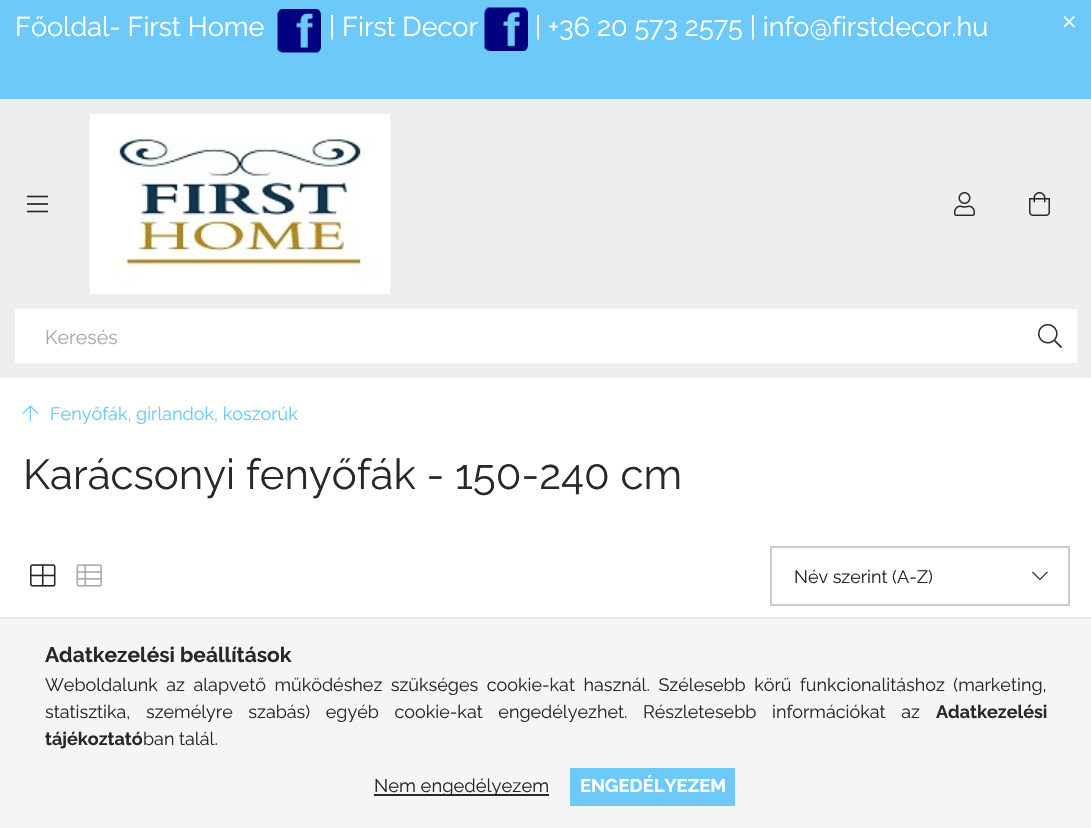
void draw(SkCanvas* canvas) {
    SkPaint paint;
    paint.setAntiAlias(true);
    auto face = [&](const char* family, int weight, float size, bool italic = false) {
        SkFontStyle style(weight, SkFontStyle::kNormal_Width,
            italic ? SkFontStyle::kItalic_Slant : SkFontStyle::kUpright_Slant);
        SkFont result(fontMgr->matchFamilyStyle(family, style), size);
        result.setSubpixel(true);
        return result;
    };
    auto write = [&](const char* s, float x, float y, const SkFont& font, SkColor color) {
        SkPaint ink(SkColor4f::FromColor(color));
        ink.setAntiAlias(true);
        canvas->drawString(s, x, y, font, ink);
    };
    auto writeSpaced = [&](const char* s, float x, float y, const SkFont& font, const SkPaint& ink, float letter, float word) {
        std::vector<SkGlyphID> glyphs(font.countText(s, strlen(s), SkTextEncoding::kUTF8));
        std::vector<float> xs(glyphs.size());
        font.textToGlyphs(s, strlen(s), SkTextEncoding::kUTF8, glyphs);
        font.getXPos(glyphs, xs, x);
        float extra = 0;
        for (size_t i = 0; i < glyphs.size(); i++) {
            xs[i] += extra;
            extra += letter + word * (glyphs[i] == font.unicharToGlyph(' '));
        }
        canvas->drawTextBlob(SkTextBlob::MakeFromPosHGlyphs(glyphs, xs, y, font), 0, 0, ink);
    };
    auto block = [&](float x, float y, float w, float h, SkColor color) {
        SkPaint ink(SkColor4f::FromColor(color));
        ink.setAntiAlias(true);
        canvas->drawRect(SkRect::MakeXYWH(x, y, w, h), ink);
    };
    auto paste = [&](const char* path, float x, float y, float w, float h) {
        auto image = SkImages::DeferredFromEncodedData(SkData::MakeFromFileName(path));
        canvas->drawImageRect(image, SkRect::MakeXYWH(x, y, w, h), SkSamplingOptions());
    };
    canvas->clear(SK_ColorWHITE);
    block(0, 0, 1091, 99, SkColorSetRGB(109, 201, 247));
    auto kFont1 = face("Raleway", 400, 27);
    write("Főoldal- First Home", 15, 36, kFont1, SK_ColorWHITE);
    paste("pic1.png", 277, 9, 44, 44);
    write("| First Decor", 329, 36, kFont1, SK_ColorWHITE);
    paste("pic2.png", 484, 7, 44, 44);
    write("| +36 20 573 2575 | info@firstdecor.hu", 535, 36, kFont1, SK_ColorWHITE);
    paste("pic3.png", 1063, 16, 12, 12);
    block(0, 99, 1091, 279, SkColorSetRGB(238, 238, 238));
    paste("pic4.png", 27, 195, 21, 18);
    paste("pic5.png", 90, 114, 300, 180);
    paste("pic6.png", 954, 192, 21, 24);
    paste("pic7.png", 1029, 192, 21, 24);
    block(15, 309, 1062, 54, SK_ColorWHITE);
    auto kFont2 = face("Raleway", 400, 19.5f);
    write("Keresés", 45, 344, kFont2, SkColorSetRGB(170, 170, 170));
    paste("pic8.png", 1038, 324, 24, 24);
    paste("pic9.png", 22, 405, 17, 17);
    auto kFont3 = face("Raleway", 400, 18);
    write("Fenyőfák, girlandok, koszorúk", 50, 420, kFont3, SkColorSetRGB(109, 201, 247));
    auto kFont4 = face("Raleway", 400, 42);
    write("Karácsonyi fenyőfák - 150-240 cm", 23, 489, kFont4, SkColorSetRGB(40, 40, 40));
    paste("pic10.png", 30, 564, 26, 23);
    paste("pic11.png", 76, 564, 26, 23);
    paint.setStyle(SkPaint::kStroke_Style);
    paint.setStrokeWidth(2);
    paint.setColor(SkColorSetRGB(204, 204, 204));
    canvas->drawRect(SkRect::MakeXYWH(771, 547, 298, 58), paint);
    write("Név szerint (A-Z)", 794, 583, kFont3, SkColorSetRGB(40, 40, 40));
    paste("pic12.png", 1032, 571, 16, 10);
    block(0, 619, 1091, 209, SkColorSetRGB(245, 245, 245));
    block(0, 617, 1091, 2, SkColorSetRGB(234, 234, 234));
    auto kFont5 = face("Raleway", 700, 21);
    write("Adatkezelési beállítások", 45, 662, kFont5, SkColorSetRGB(40, 40, 40));
    paint.setStyle(SkPaint::kFill_Style);
    paint.setColor(SkColorSetRGB(40, 40, 40));
    writeSpaced("Weboldalunk az alapvető működéshez szükséges cookie-kat használ. Szélesebb körű funkcionalitáshoz (marketing,", 45, 691, kFont3, paint, 0, 3.9f);
    writeSpaced("statisztika, személyre szabás) egyéb cookie-kat engedélyezhet. Részletesebb információkat az", 45, 718, kFont3, paint, 0, 11);
    auto kFont6 = face("Raleway", 700, 18);
    write("Adatkezelési", 936, 718, kFont6, SkColorSetRGB(40, 40, 40));
    write("tájékoztató", 45, 745, kFont6, SkColorSetRGB(40, 40, 40));
    write("ban talál.", 143, 745, kFont3, SkColorSetRGB(40, 40, 40));
    block(374, 794, 175, 2, SkColorSetRGB(40, 40, 40));
    auto kFont7 = face("Raleway", 400, 18.4f);
    write("Nem engedélyezem", 374, 792, kFont7, SkColorSetRGB(40, 40, 40));
    block(570, 768, 165, 38, SkColorSetRGB(109, 201, 247));
    auto kFont8 = face("Raleway", 700, 18.4f);
    write("ENGEDÉLYEZEM", 580, 792, kFont8, SK_ColorWHITE);
}
